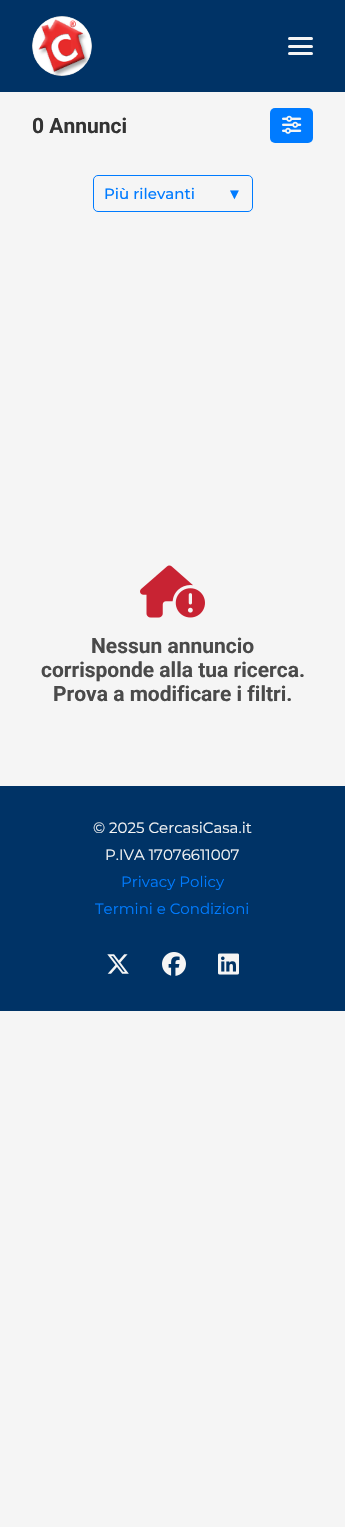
void draw(SkCanvas* canvas) {
    SkPaint paint;
    paint.setAntiAlias(true);
    auto face = [&](const char* family, int weight, float size, bool italic = false) {
        SkFontStyle style(weight, SkFontStyle::kNormal_Width,
            italic ? SkFontStyle::kItalic_Slant : SkFontStyle::kUpright_Slant);
        SkFont result(fontMgr->matchFamilyStyle(family, style), size);
        result.setSubpixel(true);
        return result;
    };
    auto write = [&](const char* s, float x, float y, const SkFont& font, SkColor color) {
        SkPaint ink(SkColor4f::FromColor(color));
        ink.setAntiAlias(true);
        canvas->drawString(s, x, y, font, ink);
    };
    auto block = [&](float x, float y, float w, float h, SkColor color) {
        SkPaint ink(SkColor4f::FromColor(color));
        ink.setAntiAlias(true);
        canvas->drawRect(SkRect::MakeXYWH(x, y, w, h), ink);
    };
    auto card = [&](float x, float y, float w, float h, float radius, SkColor color) {
        SkPaint ink(SkColor4f::FromColor(color));
        ink.setAntiAlias(true);
        canvas->drawRoundRect(SkRect::MakeXYWH(x, y, w, h), radius, radius, ink);
    };
    auto paste = [&](const char* path, float x, float y, float w, float h) {
        auto image = SkImages::DeferredFromEncodedData(SkData::MakeFromFileName(path));
        canvas->drawImageRect(image, SkRect::MakeXYWH(x, y, w, h), SkSamplingOptions());
    };
    canvas->clear(SkColorSetRGB(245, 245, 245));
    block(0, 0, 345, 92, SkColorSetRGB(0, 51, 102));
    paste("pic1.png", 32, 16, 60, 60);
    paint.setStyle(SkPaint::kStroke_Style);
    paint.setStrokeWidth(3);
    paint.setColor(SkColorSetRGB(0, 51, 102));
    canvas->drawCircle(62, 46, 31.5f, paint);
    card(288, 37, 25, 3, 1.5f, SkColorSetRGB(245, 245, 245));
    card(288, 45, 25, 3, 1.5f, SkColorSetRGB(245, 245, 245));
    card(288, 52, 25, 3, 1.5f, SkColorSetRGB(245, 245, 245));
    auto kFont1 = face("Roboto", 700, 21);
    write("0 Annunci", 32, 133, kFont1, SkColorSetRGB(51, 51, 51));
    card(270, 108, 43, 35, 5, SkColorSetRGB(0, 123, 255));
    paste("pic2.png", 282, 115, 20, 19);
    paint.setStrokeWidth(1);
    paint.setColor(SkColorSetRGB(0, 123, 255));
    canvas->drawRoundRect(SkRect::MakeXYWH(93.5f, 175.5f, 159, 36), 4.5f, 4.5f, paint);
    auto kFont2 = face("Montserrat", 500, 15);
    write("Più rilevanti", 104, 199, kFont2, SkColorSetRGB(0, 123, 255));
    auto kFont3 = face("Liberation Serif", 400, 15);
    write("▼", 227, 199, kFont3, SkColorSetRGB(0, 123, 255));
    paste("pic3.png", 140, 565, 65, 53);
    write("Nessun annuncio", 91, 653, kFont1, SkColorSetRGB(74, 74, 74));
    write("corrisponde alla tua ricerca.", 41, 677, kFont1, SkColorSetRGB(74, 74, 74));
    write("Prova a modificare i filtri.", 53, 701, kFont1, SkColorSetRGB(74, 74, 74));
    block(0, 786, 345, 225, SkColorSetRGB(0, 51, 102));
    auto kFont4 = face("Montserrat", 400, 15);
    write("© 2025 CercasiCasa.it", 93, 833, kFont4, SkColorSetRGB(245, 245, 245));
    write("P.IVA 17076611007", 105, 860, kFont4, SkColorSetRGB(245, 245, 245));
    write("Privacy Policy", 121, 887, kFont4, SkColorSetRGB(0, 123, 255));
    write("Termini e Condizioni", 95, 914, kFont4, SkColorSetRGB(0, 123, 255));
    paste("pic4.png", 107, 954, 22, 20);
    paste("pic5.png", 162, 952, 24, 24);
    paste("pic6.png", 218, 953, 21, 22);
}
